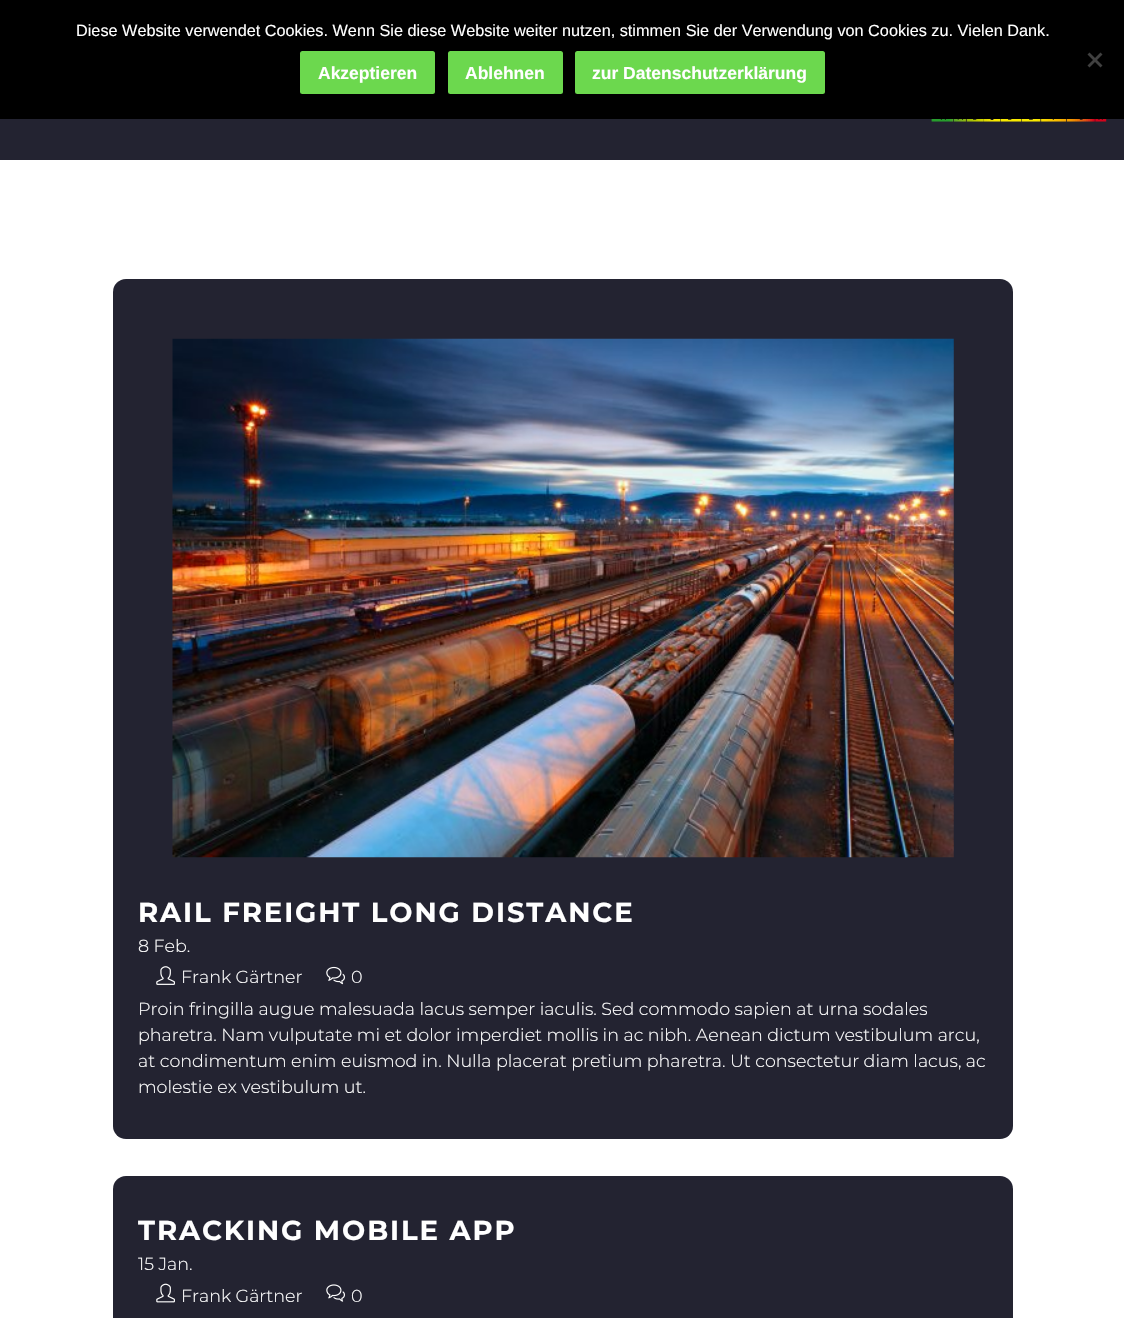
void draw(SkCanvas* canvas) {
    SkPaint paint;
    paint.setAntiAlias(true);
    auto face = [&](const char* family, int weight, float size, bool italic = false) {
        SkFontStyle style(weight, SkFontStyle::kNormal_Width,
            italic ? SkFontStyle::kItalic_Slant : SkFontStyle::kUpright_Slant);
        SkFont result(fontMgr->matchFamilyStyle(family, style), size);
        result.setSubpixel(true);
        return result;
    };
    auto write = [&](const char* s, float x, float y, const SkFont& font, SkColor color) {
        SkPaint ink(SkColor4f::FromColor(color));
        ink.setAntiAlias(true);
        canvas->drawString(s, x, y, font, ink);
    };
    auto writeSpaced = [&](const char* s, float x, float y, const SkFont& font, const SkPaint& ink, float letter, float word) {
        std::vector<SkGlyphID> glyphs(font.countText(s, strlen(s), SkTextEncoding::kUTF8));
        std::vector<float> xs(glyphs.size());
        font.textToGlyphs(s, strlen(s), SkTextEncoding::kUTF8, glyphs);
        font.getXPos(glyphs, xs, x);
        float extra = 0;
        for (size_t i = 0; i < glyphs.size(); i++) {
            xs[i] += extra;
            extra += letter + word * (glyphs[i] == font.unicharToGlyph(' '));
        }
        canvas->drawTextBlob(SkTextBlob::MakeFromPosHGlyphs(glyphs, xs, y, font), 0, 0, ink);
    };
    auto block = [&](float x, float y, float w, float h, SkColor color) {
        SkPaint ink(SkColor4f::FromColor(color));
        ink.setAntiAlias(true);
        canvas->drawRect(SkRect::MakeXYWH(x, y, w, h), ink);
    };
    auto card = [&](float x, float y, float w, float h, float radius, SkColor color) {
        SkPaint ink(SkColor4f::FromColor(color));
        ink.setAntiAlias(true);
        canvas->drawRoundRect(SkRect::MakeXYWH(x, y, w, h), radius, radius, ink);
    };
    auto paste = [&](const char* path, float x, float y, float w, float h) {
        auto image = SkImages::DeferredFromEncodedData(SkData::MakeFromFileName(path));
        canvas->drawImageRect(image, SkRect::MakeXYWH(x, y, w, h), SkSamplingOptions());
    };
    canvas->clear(SK_ColorWHITE);
    block(0, 0, 1124, 119, SK_ColorBLACK);
    auto kFont1 = face("Liberation Sans", 400, 16.25f);
    write("Diese Website verwendet Cookies. Wenn Sie diese Website weiter nutzen, stimmen Sie der Verwendung von Cookies zu. Vielen Dank.", 76, 36, kFont1, SK_ColorWHITE);
    paint.setColor(SkColorSetRGB(64, 64, 64));
    canvas->drawPath(SkPathBuilder().moveTo(1100.5f, 52.5f).lineTo(1102.5f, 54.5f).lineTo(1089.5f, 67.5f).lineTo(1087.5f, 65.5f).close().detach(), paint);
    canvas->drawPath(SkPathBuilder().moveTo(1087.5f, 54.5f).lineTo(1089.5f, 52.5f).lineTo(1102.5f, 65.5f).lineTo(1100.5f, 67.5f).close().detach(), paint);
    card(300, 51, 135, 43, 2.5f, SkColorSetRGB(108, 216, 78));
    auto kFont2 = face("Liberation Sans", 700, 17.5f);
    write("Akzeptieren", 318, 79, kFont2, SK_ColorWHITE);
    card(448, 51, 115, 43, 2.5f, SkColorSetRGB(108, 216, 78));
    write("Ablehnen", 465, 79, kFont2, SK_ColorWHITE);
    card(575, 51, 250, 43, 2.5f, SkColorSetRGB(108, 216, 78));
    write("zur Datenschutzerklärung", 592, 79, kFont2, SK_ColorWHITE);
    block(0, 119, 1124, 41, SkColorSetRGB(35, 35, 49));
    paste("pic1.png", 931, 119, 176, 3);
    card(113, 279, 900, 860, 13, SkColorSetRGB(35, 35, 49));
    paste("pic2.png", 172, 338, 782, 520);
    auto kFont3 = face("Montserrat", 700, 27.5f);
    paint.setColor(SK_ColorWHITE);
    writeSpaced("RAIL FREIGHT LONG DISTANCE", 138, 922, kFont3, paint, 1.9f, 0);
    auto kFont4 = face("Montserrat", 300, 17.5f);
    write("8 Feb.", 138, 952, kFont4, SK_ColorWHITE);
    paste("pic3.png", 156, 966, 19, 19);
    write("Frank Gärtner", 181, 983, kFont4, SK_ColorWHITE);
    paste("pic4.png", 326, 966, 19, 19);
    write("0", 351, 983, kFont4, SK_ColorWHITE);
    write("Proin fringilla augue malesuada lacus semper iaculis. Sed commodo sapien at urna sodales", 138, 1015, kFont4, SK_ColorWHITE);
    write("pharetra. Nam vulputate mi et dolor imperdiet mollis in ac nibh. Aenean dictum vestibulum arcu,", 138, 1041, kFont4, SK_ColorWHITE);
    write("at condimentum enim euismod in. Nulla placerat pretium pharetra. Ut consectetur diam lacus, ac", 138, 1067, kFont4, SK_ColorWHITE);
    write("molestie ex vestibulum ut.", 138, 1093, kFont4, SK_ColorWHITE);
    card(113, 1176, 900, 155, 13, SkColorSetRGB(35, 35, 49));
    writeSpaced("TRACKING MOBILE APP", 138, 1240, kFont3, paint, 1.9f, 0);
    write("15 Jan.", 138, 1270, kFont4, SK_ColorWHITE);
    paste("pic5.png", 156, 1283, 19, 20);
    write("Frank Gärtner", 181, 1302, kFont4, SK_ColorWHITE);
    paste("pic6.png", 326, 1284, 19, 18);
    write("0", 351, 1302, kFont4, SK_ColorWHITE);
}
